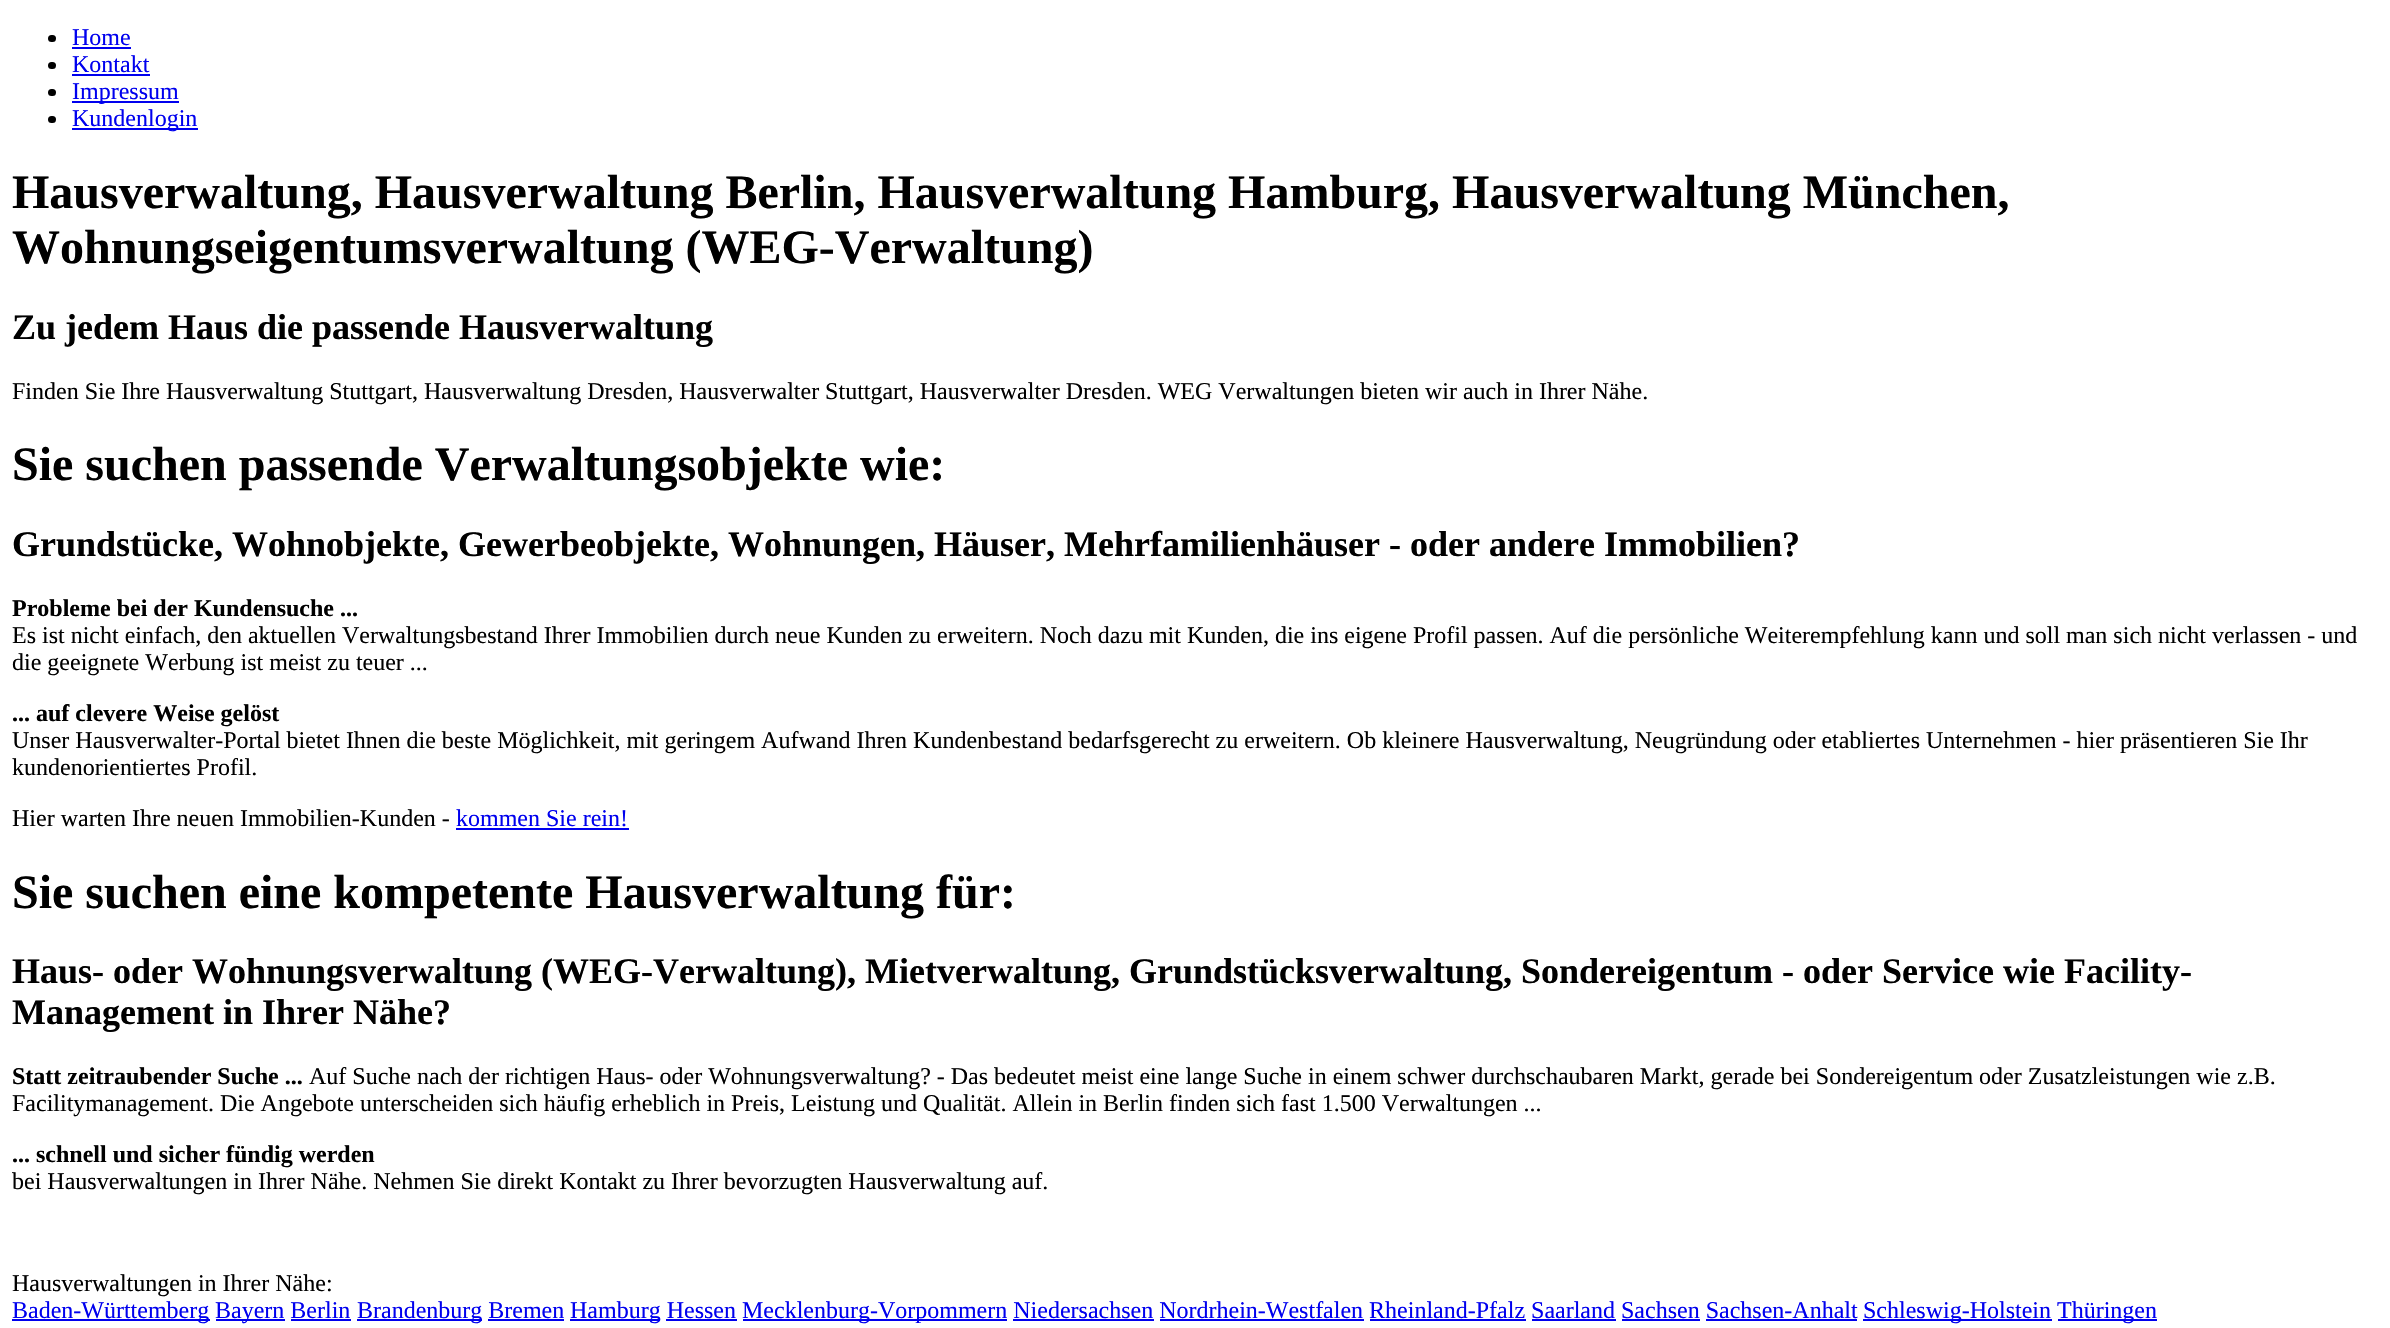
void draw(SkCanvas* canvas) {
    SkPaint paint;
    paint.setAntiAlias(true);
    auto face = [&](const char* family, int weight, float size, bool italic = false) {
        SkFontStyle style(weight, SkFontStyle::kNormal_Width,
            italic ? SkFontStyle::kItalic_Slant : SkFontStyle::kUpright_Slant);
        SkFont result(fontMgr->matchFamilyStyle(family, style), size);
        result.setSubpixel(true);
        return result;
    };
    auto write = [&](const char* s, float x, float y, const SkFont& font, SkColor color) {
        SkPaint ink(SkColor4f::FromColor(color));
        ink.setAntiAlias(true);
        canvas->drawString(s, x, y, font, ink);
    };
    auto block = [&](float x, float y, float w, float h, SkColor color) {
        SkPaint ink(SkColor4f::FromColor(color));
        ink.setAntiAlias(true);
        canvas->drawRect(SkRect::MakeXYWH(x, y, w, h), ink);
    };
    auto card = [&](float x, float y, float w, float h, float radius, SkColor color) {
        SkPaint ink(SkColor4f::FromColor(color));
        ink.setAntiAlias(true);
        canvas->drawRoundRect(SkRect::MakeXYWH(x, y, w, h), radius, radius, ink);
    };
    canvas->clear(SK_ColorWHITE);
    card(48, 35, 8, 7, 3.5f, SK_ColorBLACK);
    auto kFont1 = face("Liberation Serif", 400, 24);
    write("Home", 72, 45, kFont1, SkColorSetRGB(0, 0, 238));
    block(72, 47, 59, 2, SkColorSetRGB(0, 0, 238));
    card(48, 62, 8, 7, 3.5f, SK_ColorBLACK);
    write("Kontakt", 72, 72, kFont1, SkColorSetRGB(0, 0, 238));
    block(72, 74, 78, 2, SkColorSetRGB(0, 0, 238));
    card(48, 89, 8, 7, 3.5f, SK_ColorBLACK);
    block(72, 101, 107, 2, SkColorSetRGB(0, 0, 238));
    write("Impressum", 72, 99, kFont1, SkColorSetRGB(0, 0, 238));
    card(48, 116, 8, 7, 3.5f, SK_ColorBLACK);
    block(72, 128, 126, 2, SkColorSetRGB(0, 0, 238));
    write("Kundenlogin", 72, 126, kFont1, SkColorSetRGB(0, 0, 238));
    auto kFont2 = face("Liberation Serif", 700, 48);
    write("Hausverwaltung, Hausverwaltung Berlin, Hausverwaltung Hamburg, Hausverwaltung München,", 12, 208, kFont2, SK_ColorBLACK);
    write("Wohnungseigentumsverwaltung (WEG-Verwaltung)", 12, 263, kFont2, SK_ColorBLACK);
    auto kFont3 = face("Liberation Serif", 700, 36);
    write("Zu jedem Haus die passende Hausverwaltung", 12, 339, kFont3, SK_ColorBLACK);
    write("Finden Sie Ihre Hausverwaltung Stuttgart, Hausverwaltung Dresden, Hausverwalter Stuttgart, Hausverwalter Dresden. WEG Verwaltungen bieten wir auch in Ihrer Nähe.", 12, 399, kFont1, SK_ColorBLACK);
    write("Sie suchen passende Verwaltungsobjekte wie:", 12, 480, kFont2, SK_ColorBLACK);
    write("Grundstücke, Wohnobjekte, Gewerbeobjekte, Wohnungen, Häuser, Mehrfamilienhäuser - oder andere Immobilien?", 12, 556, kFont3, SK_ColorBLACK);
    auto kFont4 = face("Liberation Serif", 700, 24);
    write("Probleme bei der Kundensuche ...", 12, 616, kFont4, SK_ColorBLACK);
    write("Es ist nicht einfach, den aktuellen Verwaltungsbestand Ihrer Immobilien durch neue Kunden zu erweitern. Noch dazu mit Kunden, die ins eigene Profil passen. Auf die persönliche Weiterempfehlung kann und soll man sich nicht verlassen - und", 12, 643, kFont1, SK_ColorBLACK);
    write("die geeignete Werbung ist meist zu teuer ...", 12, 670, kFont1, SK_ColorBLACK);
    write("... auf clevere Weise gelöst", 12, 721, kFont4, SK_ColorBLACK);
    write("Unser Hausverwalter-Portal bietet Ihnen die beste Möglichkeit, mit geringem Aufwand Ihren Kundenbestand bedarfsgerecht zu erweitern. Ob kleinere Hausverwaltung, Neugründung oder etabliertes Unternehmen - hier präsentieren Sie Ihr", 12, 748, kFont1, SK_ColorBLACK);
    write("kundenorientiertes Profil.", 12, 775, kFont1, SK_ColorBLACK);
    write("Hier warten Ihre neuen Immobilien-Kunden -", 12, 826, kFont1, SK_ColorBLACK);
    write("kommen Sie rein!", 456, 826, kFont1, SkColorSetRGB(0, 0, 238));
    block(456, 828, 173, 2, SkColorSetRGB(0, 0, 238));
    write("Sie suchen eine kompetente Hausverwaltung für:", 12, 908, kFont2, SK_ColorBLACK);
    write("Haus- oder Wohnungsverwaltung (WEG-Verwaltung), Mietverwaltung, Grundstücksverwaltung, Sondereigentum - oder Service wie Facility-", 12, 983, kFont3, SK_ColorBLACK);
    write("Management in Ihrer Nähe?", 12, 1024, kFont3, SK_ColorBLACK);
    write("Statt zeitraubender Suche ...", 12, 1084, kFont4, SK_ColorBLACK);
    write("Auf Suche nach der richtigen Haus- oder Wohnungsverwaltung? - Das bedeutet meist eine lange Suche in einem schwer durchschaubaren Markt, gerade bei Sondereigentum oder Zusatzleistungen wie z.B.", 309, 1084, kFont1, SK_ColorBLACK);
    write("Facilitymanagement. Die Angebote unterscheiden sich häufig erheblich in Preis, Leistung und Qualität. Allein in Berlin finden sich fast 1.500 Verwaltungen ...", 12, 1111, kFont1, SK_ColorBLACK);
    write("... schnell und sicher fündig werden", 12, 1162, kFont4, SK_ColorBLACK);
    write("bei Hausverwaltungen in Ihrer Nähe. Nehmen Sie direkt Kontakt zu Ihrer bevorzugten Hausverwaltung auf.", 12, 1189, kFont1, SK_ColorBLACK);
    write("Hausverwaltungen in Ihrer Nähe:", 12, 1291, kFont1, SK_ColorBLACK);
    block(12, 1319, 198, 2, SkColorSetRGB(0, 0, 238));
    write("Baden-Württemberg", 12, 1318, kFont1, SkColorSetRGB(0, 0, 238));
    block(216, 1319, 69, 2, SkColorSetRGB(0, 0, 238));
    write("Bayern Berlin", 215, 1318, kFont1, SkColorSetRGB(0, 0, 238));
    block(357, 1319, 125, 2, SkColorSetRGB(0, 0, 238));
    write("Brandenburg Bremen", 357, 1318, kFont1, SkColorSetRGB(0, 0, 238));
    block(570, 1319, 90, 2, SkColorSetRGB(0, 0, 238));
    write("Hamburg Hessen", 570, 1318, kFont1, SkColorSetRGB(0, 0, 238));
    block(743, 1319, 264, 2, SkColorSetRGB(0, 0, 238));
    write("Mecklenburg-Vorpommern Niedersachsen Nordrhein-Westfalen Rheinland-Pfalz Saarland Sachsen Sachsen-Anhalt", 742, 1318, kFont1, SkColorSetRGB(0, 0, 238));
    block(1863, 1319, 189, 2, SkColorSetRGB(0, 0, 238));
    write("Schleswig-Holstein", 1863, 1318, kFont1, SkColorSetRGB(0, 0, 238));
    block(2058, 1319, 99, 2, SkColorSetRGB(0, 0, 238));
    write("Thüringen", 2057, 1318, kFont1, SkColorSetRGB(0, 0, 238));
    block(291, 1319, 60, 2, SkColorSetRGB(0, 0, 238));
    block(488, 1319, 76, 2, SkColorSetRGB(0, 0, 238));
    block(666, 1319, 71, 2, SkColorSetRGB(0, 0, 238));
    block(1013, 1319, 141, 2, SkColorSetRGB(0, 0, 238));
    block(1160, 1319, 204, 2, SkColorSetRGB(0, 0, 238));
    block(1370, 1319, 156, 2, SkColorSetRGB(0, 0, 238));
    block(1532, 1319, 84, 2, SkColorSetRGB(0, 0, 238));
    block(1622, 1319, 78, 2, SkColorSetRGB(0, 0, 238));
    block(1706, 1319, 151, 2, SkColorSetRGB(0, 0, 238));
}
